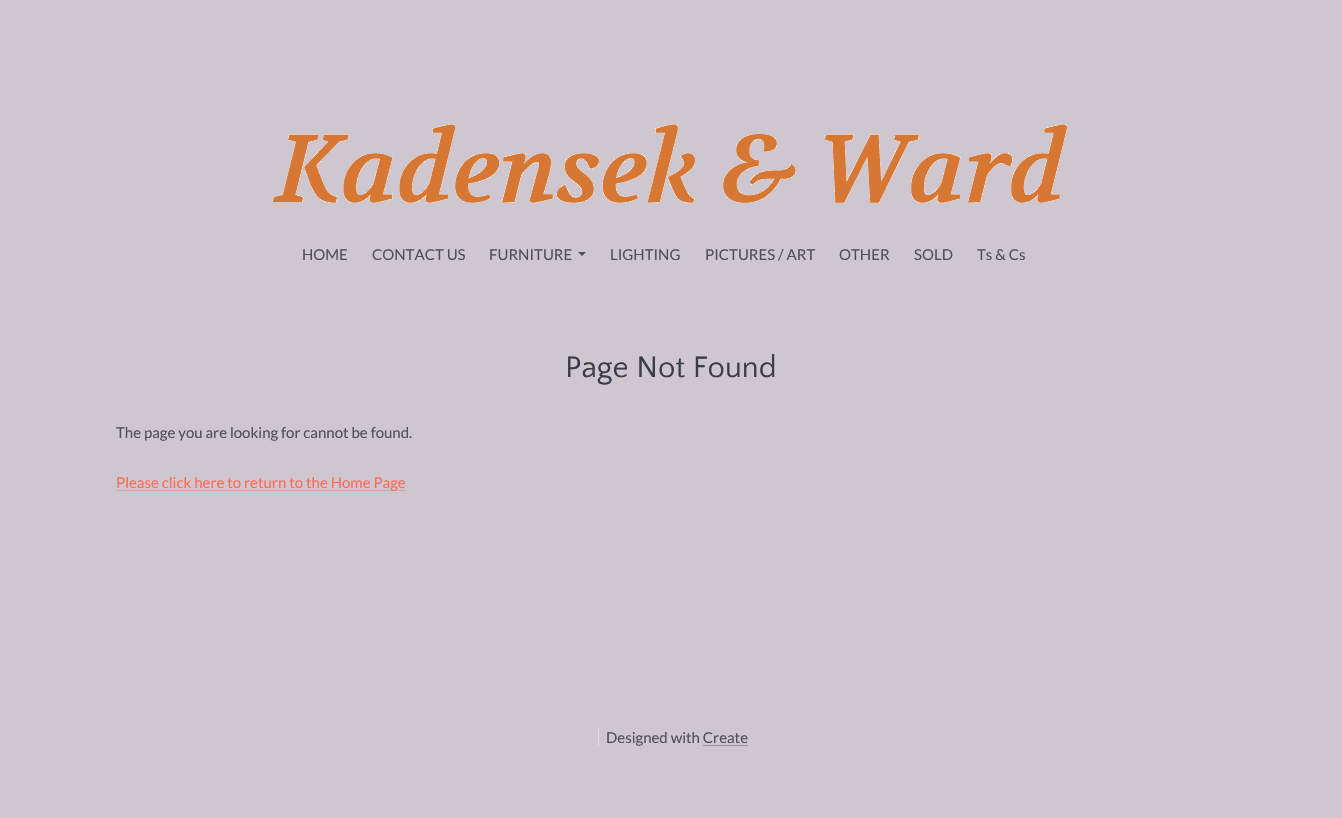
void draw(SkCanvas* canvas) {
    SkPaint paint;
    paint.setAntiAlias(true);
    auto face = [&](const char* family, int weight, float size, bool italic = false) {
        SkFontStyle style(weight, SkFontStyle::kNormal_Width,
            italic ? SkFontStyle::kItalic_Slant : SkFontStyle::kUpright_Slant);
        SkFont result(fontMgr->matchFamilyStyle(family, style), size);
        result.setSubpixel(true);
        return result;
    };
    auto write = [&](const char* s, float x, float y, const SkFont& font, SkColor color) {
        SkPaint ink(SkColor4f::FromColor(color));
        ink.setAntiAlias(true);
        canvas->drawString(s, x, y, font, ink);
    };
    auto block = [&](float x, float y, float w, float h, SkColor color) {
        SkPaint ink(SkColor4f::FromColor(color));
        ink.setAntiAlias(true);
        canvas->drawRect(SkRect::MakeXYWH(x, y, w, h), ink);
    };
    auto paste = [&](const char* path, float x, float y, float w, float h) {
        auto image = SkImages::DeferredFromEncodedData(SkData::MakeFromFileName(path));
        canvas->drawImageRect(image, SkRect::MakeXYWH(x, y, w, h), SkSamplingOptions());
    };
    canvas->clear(SkColorSetRGB(207, 199, 207));
    paste("pic1.png", 272, 124, 795, 79);
    auto kFont1 = face("Lato", 400, 15);
    write("HOME", 302, 260, kFont1, SkColorSetRGB(77, 79, 95));
    write("CONTACT US", 372, 260, kFont1, SkColorSetRGB(77, 79, 95));
    write("FURNITURE", 489, 260, kFont1, SkColorSetRGB(77, 79, 95));
    paint.setColor(SkColorSetRGB(77, 79, 95));
    canvas->drawPath(SkPathBuilder().moveTo(578, 252).lineTo(586, 252).lineTo(582, 256).close().detach(), paint);
    write("LIGHTING", 610, 260, kFont1, SkColorSetRGB(77, 79, 95));
    write("PICTURES / ART", 705, 260, kFont1, SkColorSetRGB(77, 79, 95));
    write("OTHER", 839, 260, kFont1, SkColorSetRGB(77, 79, 95));
    write("SOLD", 914, 260, kFont1, SkColorSetRGB(77, 79, 95));
    write("Ts & Cs", 977, 260, kFont1, SkColorSetRGB(77, 79, 95));
    auto kFont2 = face("Quattrocento Sans", 400, 31);
    write("Page Not Found", 565, 377, kFont2, SkColorSetRGB(58, 60, 71));
    write("The page you are looking for cannot be found.", 116, 438, kFont1, SkColorSetRGB(77, 79, 95));
    block(116, 490, 290, 1, SkColorSetRGB(226, 162, 159));
    write("Please click here to return to the Home Page", 116, 488, kFont1, SkColorSetRGB(255, 107, 87));
    block(598, 728, 1, 18, SkColorSetRGB(221, 217, 221));
    write("Designed with Create", 606, 743, kFont1, SkColorSetRGB(77, 79, 95));
    block(703, 745, 45, 1, SkColorSetRGB(155, 151, 162));
}
